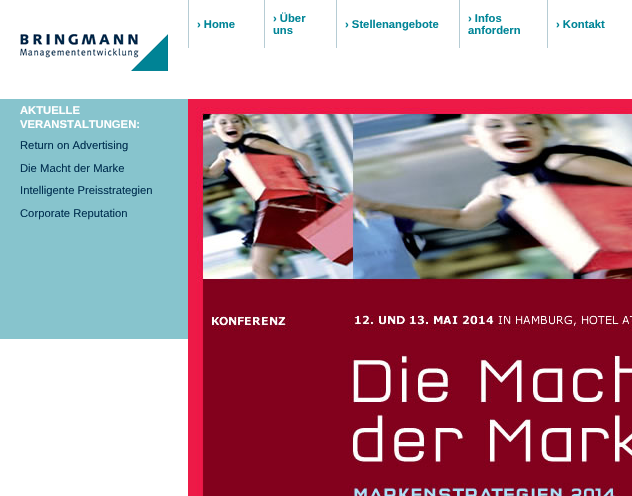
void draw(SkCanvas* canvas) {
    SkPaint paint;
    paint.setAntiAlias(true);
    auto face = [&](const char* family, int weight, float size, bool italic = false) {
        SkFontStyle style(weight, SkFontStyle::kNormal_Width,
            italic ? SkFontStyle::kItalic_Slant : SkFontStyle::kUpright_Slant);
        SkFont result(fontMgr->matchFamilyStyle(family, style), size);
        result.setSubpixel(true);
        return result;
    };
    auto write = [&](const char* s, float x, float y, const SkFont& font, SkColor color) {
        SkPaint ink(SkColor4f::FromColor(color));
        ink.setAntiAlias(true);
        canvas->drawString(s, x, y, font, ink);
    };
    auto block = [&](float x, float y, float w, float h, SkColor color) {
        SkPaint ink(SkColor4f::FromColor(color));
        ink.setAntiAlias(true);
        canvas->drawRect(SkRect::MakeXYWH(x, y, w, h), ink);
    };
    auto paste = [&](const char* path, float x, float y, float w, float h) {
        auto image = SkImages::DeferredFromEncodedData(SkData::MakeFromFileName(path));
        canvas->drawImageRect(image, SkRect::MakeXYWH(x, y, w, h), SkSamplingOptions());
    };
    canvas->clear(SK_ColorWHITE);
    block(188, 0, 1, 48, SkColorSetRGB(182, 204, 212));
    auto kFont1 = face("Liberation Sans", 700, 11.25f);
    write("› Home", 197, 28, kFont1, SkColorSetRGB(0, 133, 151));
    block(264, 0, 1, 48, SkColorSetRGB(182, 204, 212));
    write("› Über", 273, 22, kFont1, SkColorSetRGB(0, 133, 151));
    write("uns", 273, 34, kFont1, SkColorSetRGB(0, 133, 151));
    block(336, 0, 1, 48, SkColorSetRGB(182, 204, 212));
    write("› Stellenangebote", 345, 28, kFont1, SkColorSetRGB(0, 133, 151));
    block(459, 0, 1, 48, SkColorSetRGB(182, 204, 212));
    write("› Infos", 468, 22, kFont1, SkColorSetRGB(0, 133, 151));
    write("anfordern", 468, 34, kFont1, SkColorSetRGB(0, 133, 151));
    block(547, 0, 1, 48, SkColorSetRGB(182, 204, 212));
    write("› Kontakt", 556, 28, kFont1, SkColorSetRGB(0, 133, 151));
    paste("pic1.png", 20, 34, 148, 37);
    block(0, 99, 188, 240, SkColorSetRGB(135, 196, 205));
    paste("pic2.png", 188, 99, 444, 397);
    write("AKTUELLE", 20, 114, kFont1, SK_ColorWHITE);
    write("VERANSTALTUNGEN:", 20, 128, kFont1, SK_ColorWHITE);
    auto kFont2 = face("Liberation Sans", 400, 11.25f);
    write("Return on Advertising", 20, 149, kFont2, SkColorSetRGB(0, 47, 80));
    write("Die Macht der Marke", 20, 172, kFont2, SkColorSetRGB(0, 47, 80));
    write("Intelligente Preisstrategien", 20, 194, kFont2, SkColorSetRGB(0, 47, 80));
    write("Corporate Reputation", 20, 217, kFont2, SkColorSetRGB(0, 47, 80));
}
